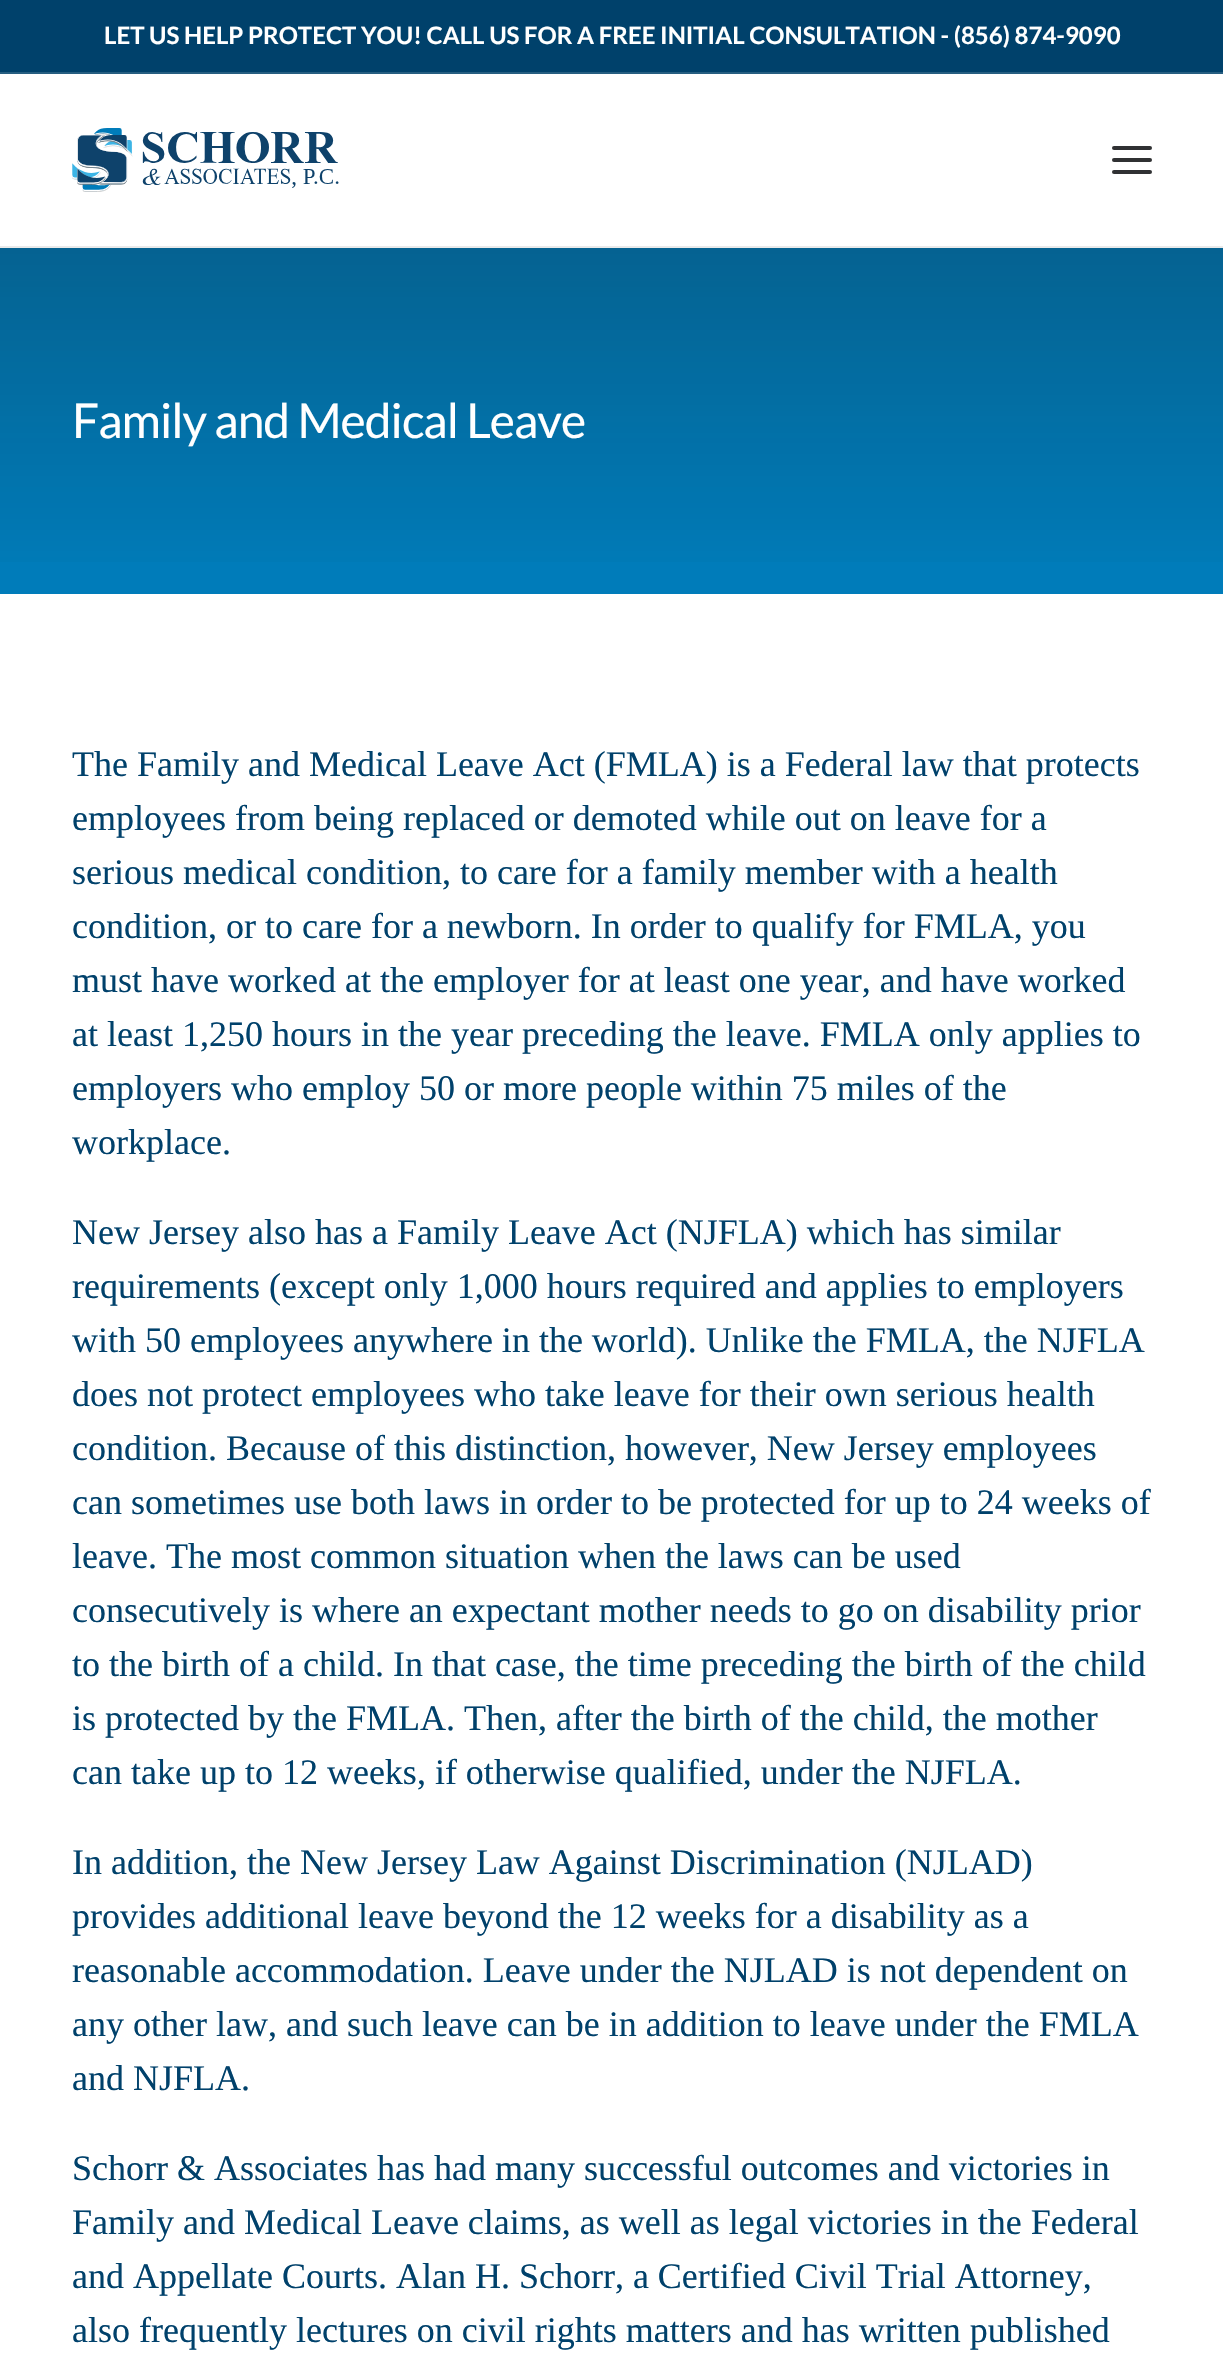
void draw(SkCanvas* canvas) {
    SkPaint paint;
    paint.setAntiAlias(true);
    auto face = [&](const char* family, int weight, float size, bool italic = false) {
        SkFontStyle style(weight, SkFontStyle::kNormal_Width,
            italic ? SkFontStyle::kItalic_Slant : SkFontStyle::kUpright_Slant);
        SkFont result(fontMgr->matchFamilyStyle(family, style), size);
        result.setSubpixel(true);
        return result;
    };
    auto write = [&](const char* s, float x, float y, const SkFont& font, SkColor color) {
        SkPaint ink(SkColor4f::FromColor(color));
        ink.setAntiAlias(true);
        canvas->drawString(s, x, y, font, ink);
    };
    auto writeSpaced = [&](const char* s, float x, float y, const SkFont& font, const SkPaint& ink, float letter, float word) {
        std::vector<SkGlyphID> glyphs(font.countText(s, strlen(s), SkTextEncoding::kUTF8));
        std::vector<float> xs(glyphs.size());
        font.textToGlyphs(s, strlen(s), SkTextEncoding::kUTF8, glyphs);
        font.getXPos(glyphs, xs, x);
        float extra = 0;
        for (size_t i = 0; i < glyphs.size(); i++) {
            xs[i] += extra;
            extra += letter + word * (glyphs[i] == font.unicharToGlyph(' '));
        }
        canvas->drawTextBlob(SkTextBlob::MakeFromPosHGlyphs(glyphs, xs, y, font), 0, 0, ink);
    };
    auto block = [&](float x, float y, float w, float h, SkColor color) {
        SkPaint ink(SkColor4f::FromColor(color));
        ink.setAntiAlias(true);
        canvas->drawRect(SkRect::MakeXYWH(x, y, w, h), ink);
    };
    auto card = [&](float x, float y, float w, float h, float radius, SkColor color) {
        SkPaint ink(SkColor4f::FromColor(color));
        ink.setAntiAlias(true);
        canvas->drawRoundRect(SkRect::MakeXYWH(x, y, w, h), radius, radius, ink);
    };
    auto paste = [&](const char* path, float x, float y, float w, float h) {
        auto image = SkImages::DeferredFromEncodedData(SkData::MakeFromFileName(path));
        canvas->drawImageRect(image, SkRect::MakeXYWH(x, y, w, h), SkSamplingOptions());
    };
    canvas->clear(SK_ColorWHITE);
    block(0, 0, 1223, 72, SkColorSetRGB(0, 65, 107));
    block(0, 72, 1223, 2, SkColorSetRGB(38, 94, 129));
    auto kFont1 = face("Lato", 700, 24);
    write("LET US HELP PROTECT YOU! CALL US FOR A FREE INITIAL CONSULTATION - (856) 874-9090", 104, 44, kFont1, SK_ColorWHITE);
    block(0, 246, 1223, 2, SkColorSetRGB(234, 234, 234));
    paste("pic1.png", 72, 128, 267, 64);
    card(1112, 158, 40, 4, 2, SkColorSetRGB(48, 49, 51));
    card(1112, 146, 40, 4, 2, SkColorSetRGB(48, 49, 51));
    card(1112, 170, 40, 4, 2, SkColorSetRGB(48, 49, 51));
    block(0, 248, 1223, 346, SkColorSetRGB(0, 124, 186));
    {
        const SkColor colors[] = {SkColorSetARGB(0, 20, 22, 24), SkColorSetARGB(64, 20, 22, 24)};
        const float stops[] = {0, 1};
        const SkPoint ends[] = {{612, 592}, {612, 246}};
        paint.setShader(SkGradientShader::MakeLinear(ends, colors, stops, 2, SkTileMode::kClamp));
        paint.setAlpha(255);
    }
    canvas->drawRect(SkRect::MakeXYWH(0, 248, 1223, 314), paint);
    auto kFont2 = face("Lato", 400, 48);
    paint.setShader(nullptr);
    paint.setColor(SK_ColorWHITE);
    writeSpaced("Family and Medical Leave", 72, 438, kFont2, paint, -1, 0);
    auto kFont3 = face("Liberation Serif", 400, 36);
    write("The Family and Medical Leave Act (FMLA) is a Federal law that protects", 72, 776, kFont3, SkColorSetRGB(0, 65, 107));
    write("employees from being replaced or demoted while out on leave for a", 72, 830, kFont3, SkColorSetRGB(0, 65, 107));
    write("serious medical condition, to care for a family member with a health", 72, 884, kFont3, SkColorSetRGB(0, 65, 107));
    write("condition, or to care for a newborn. In order to qualify for FMLA, you", 72, 938, kFont3, SkColorSetRGB(0, 65, 107));
    write("must have worked at the employer for at least one year, and have worked", 72, 992, kFont3, SkColorSetRGB(0, 65, 107));
    write("at least 1,250 hours in the year preceding the leave. FMLA only applies to", 72, 1046, kFont3, SkColorSetRGB(0, 65, 107));
    write("employers who employ 50 or more people within 75 miles of the", 72, 1100, kFont3, SkColorSetRGB(0, 65, 107));
    write("workplace.", 72, 1154, kFont3, SkColorSetRGB(0, 65, 107));
    write("New Jersey also has a Family Leave Act (NJFLA) which has similar", 72, 1244, kFont3, SkColorSetRGB(0, 65, 107));
    write("requirements (except only 1,000 hours required and applies to employers", 72, 1298, kFont3, SkColorSetRGB(0, 65, 107));
    write("with 50 employees anywhere in the world). Unlike the FMLA, the NJFLA", 72, 1352, kFont3, SkColorSetRGB(0, 65, 107));
    write("does not protect employees who take leave for their own serious health", 72, 1406, kFont3, SkColorSetRGB(0, 65, 107));
    write("condition. Because of this distinction, however, New Jersey employees", 72, 1460, kFont3, SkColorSetRGB(0, 65, 107));
    write("can sometimes use both laws in order to be protected for up to 24 weeks of", 72, 1514, kFont3, SkColorSetRGB(0, 65, 107));
    write("leave. The most common situation when the laws can be used", 72, 1568, kFont3, SkColorSetRGB(0, 65, 107));
    write("consecutively is where an expectant mother needs to go on disability prior", 72, 1622, kFont3, SkColorSetRGB(0, 65, 107));
    write("to the birth of a child. In that case, the time preceding the birth of the child", 72, 1676, kFont3, SkColorSetRGB(0, 65, 107));
    write("is protected by the FMLA. Then, after the birth of the child, the mother", 72, 1730, kFont3, SkColorSetRGB(0, 65, 107));
    write("can take up to 12 weeks, if otherwise qualified, under the NJFLA.", 72, 1784, kFont3, SkColorSetRGB(0, 65, 107));
    write("In addition, the New Jersey Law Against Discrimination (NJLAD)", 72, 1874, kFont3, SkColorSetRGB(0, 65, 107));
    write("provides additional leave beyond the 12 weeks for a disability as a", 72, 1928, kFont3, SkColorSetRGB(0, 65, 107));
    write("reasonable accommodation. Leave under the NJLAD is not dependent on", 72, 1982, kFont3, SkColorSetRGB(0, 65, 107));
    write("any other law, and such leave can be in addition to leave under the FMLA", 72, 2036, kFont3, SkColorSetRGB(0, 65, 107));
    write("and NJFLA.", 72, 2090, kFont3, SkColorSetRGB(0, 65, 107));
    write("Schorr & Associates has had many successful outcomes and victories in", 72, 2180, kFont3, SkColorSetRGB(0, 65, 107));
    write("Family and Medical Leave claims, as well as legal victories in the Federal", 72, 2234, kFont3, SkColorSetRGB(0, 65, 107));
    write("and Appellate Courts. Alan H. Schorr, a Certified Civil Trial Attorney,", 72, 2288, kFont3, SkColorSetRGB(0, 65, 107));
    write("also frequently lectures on civil rights matters and has written published", 72, 2342, kFont3, SkColorSetRGB(0, 65, 107));
}
